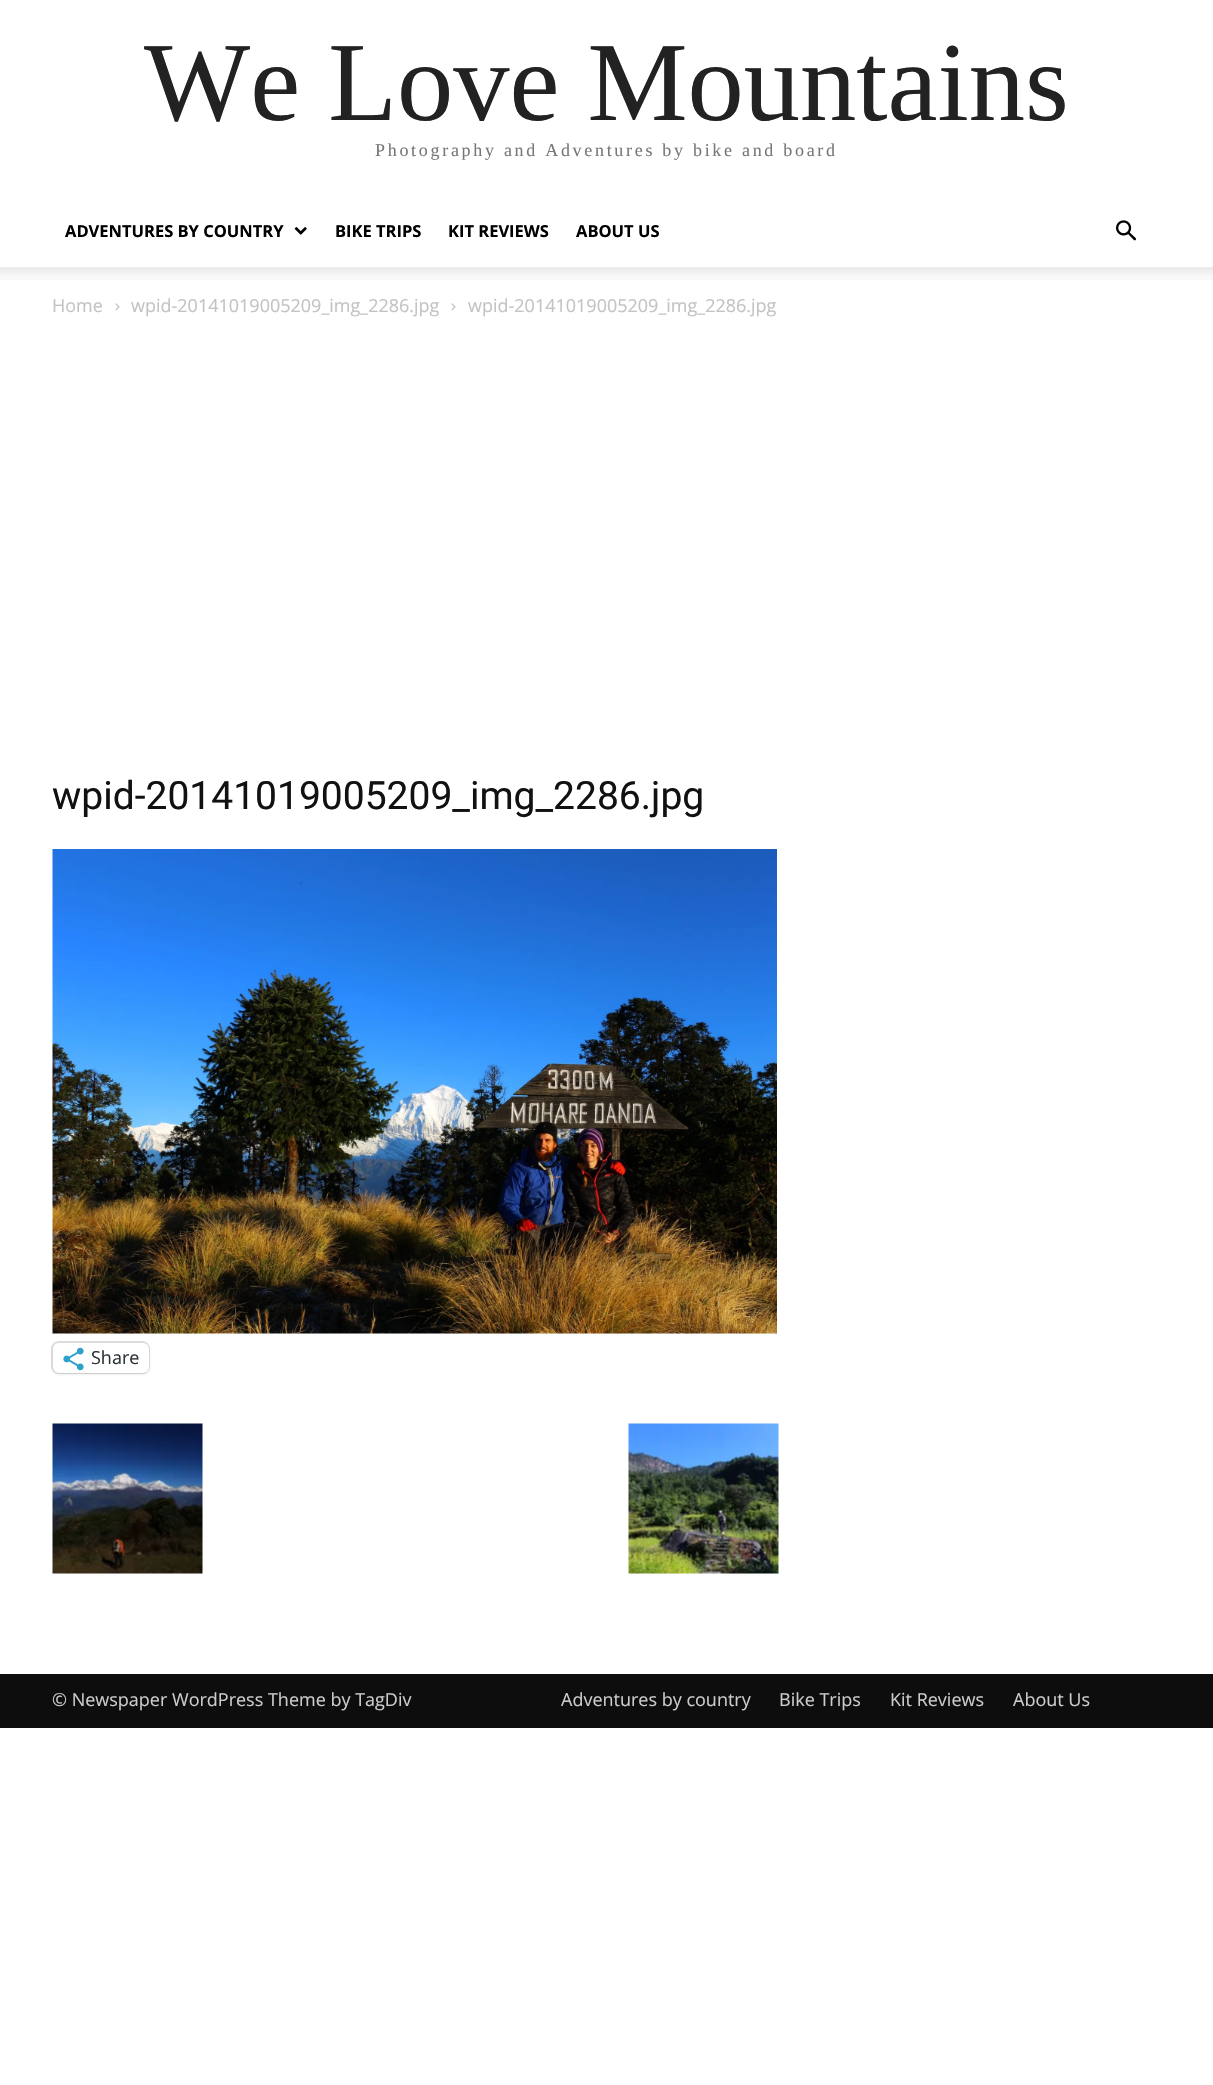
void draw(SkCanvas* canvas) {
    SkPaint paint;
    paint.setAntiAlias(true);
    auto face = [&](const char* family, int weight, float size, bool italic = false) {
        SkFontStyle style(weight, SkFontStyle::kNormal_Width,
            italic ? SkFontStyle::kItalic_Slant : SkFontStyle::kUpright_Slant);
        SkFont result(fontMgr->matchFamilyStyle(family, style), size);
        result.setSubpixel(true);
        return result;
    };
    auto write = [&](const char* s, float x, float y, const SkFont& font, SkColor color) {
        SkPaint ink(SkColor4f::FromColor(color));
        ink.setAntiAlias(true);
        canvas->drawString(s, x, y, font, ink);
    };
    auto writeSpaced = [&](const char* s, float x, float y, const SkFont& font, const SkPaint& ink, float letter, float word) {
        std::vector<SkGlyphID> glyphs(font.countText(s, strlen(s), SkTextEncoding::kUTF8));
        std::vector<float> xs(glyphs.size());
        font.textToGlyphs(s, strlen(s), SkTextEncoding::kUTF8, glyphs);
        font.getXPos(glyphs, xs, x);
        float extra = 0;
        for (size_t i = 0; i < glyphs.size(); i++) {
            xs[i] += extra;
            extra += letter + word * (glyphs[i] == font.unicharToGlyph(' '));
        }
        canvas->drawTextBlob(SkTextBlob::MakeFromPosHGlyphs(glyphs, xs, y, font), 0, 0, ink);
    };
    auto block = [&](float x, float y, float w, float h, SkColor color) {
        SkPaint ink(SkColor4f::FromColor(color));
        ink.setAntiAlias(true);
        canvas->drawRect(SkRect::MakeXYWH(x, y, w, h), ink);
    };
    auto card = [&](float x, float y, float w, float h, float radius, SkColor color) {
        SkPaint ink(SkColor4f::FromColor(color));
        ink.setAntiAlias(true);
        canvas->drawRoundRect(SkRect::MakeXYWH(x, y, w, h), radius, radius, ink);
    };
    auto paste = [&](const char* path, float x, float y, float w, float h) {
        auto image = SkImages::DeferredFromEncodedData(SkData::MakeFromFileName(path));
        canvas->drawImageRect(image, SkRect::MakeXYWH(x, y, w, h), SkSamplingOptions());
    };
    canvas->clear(SK_ColorWHITE);
    auto kFont1 = face("Liberation Serif", 400, 112.5f);
    write("We Love Mountains", 144, 120, kFont1, SkColorSetRGB(34, 34, 34));
    auto kFont2 = face("Liberation Serif", 400, 18);
    paint.setColor(SkColorSetRGB(119, 119, 119));
    writeSpaced("Photography and Adventures by bike and board", 375, 156, kFont2, paint, 2.7f, 0);
    auto kFont3 = face("Open Sans", 700, 16.5f);
    write("ADVENTURES BY COUNTRY", 65, 237, kFont3, SK_ColorBLACK);
    paste("pic1.png", 294, 227, 13, 8);
    write("BIKE TRIPS", 335, 237, kFont3, SK_ColorBLACK);
    write("KIT REVIEWS", 448, 237, kFont3, SK_ColorBLACK);
    write("ABOUT US", 576, 237, kFont3, SK_ColorBLACK);
    paste("pic2.png", 1116, 220, 20, 21);
    paste("pic3.png", 0, 267, 1213, 13);
    auto kFont4 = face("Open Sans", 400, 18);
    write("Home", 52, 312, kFont4, SkColorSetRGB(195, 195, 195));
    paste("pic4.png", 115, 303, 5, 8);
    write("wpid-20141019005209_img_2286.jpg", 131, 312, kFont4, SkColorSetRGB(195, 195, 195));
    paste("pic4.png", 451, 303, 5, 8);
    write("wpid-20141019005209_img_2286.jpg", 468, 312, kFont4, SkColorSetRGB(195, 195, 195));
    auto kFont5 = face("Roboto", 400, 39);
    write("wpid-20141019005209_img_2286.jpg", 52, 809, kFont5, SkColorSetRGB(17, 17, 17));
    paste("pic5.png", 52, 849, 725, 485);
    paint.setStyle(SkPaint::kStroke_Style);
    paint.setStrokeWidth(2);
    paint.setColor(SkColorSetRGB(224, 224, 224));
    canvas->drawRoundRect(SkRect::MakeXYWH(52, 1342, 97, 31), 7, 7, paint);
    paint.setStyle(SkPaint::kFill_Style);
    paint.setColor(SkColorSetARGB(31, 0, 0, 0));
    paint.setMaskFilter(SkMaskFilter::MakeBlur(kNormal_SkBlurStyle, 1.5f));
    canvas->drawRoundRect(SkRect::MakeXYWH(53, 1344, 96, 30), 6, 6, paint);
    paint.setMaskFilter(nullptr);
    card(53, 1343, 96, 30, 6, SK_ColorWHITE);
    paste("pic6.png", 63, 1347, 21, 24);
    write("Share", 91, 1364, kFont4, SkColorSetRGB(44, 51, 56));
    paste("pic7.png", 52, 1423, 151, 151);
    paste("pic8.png", 628, 1423, 151, 151);
    block(0, 1674, 1213, 54, SkColorSetRGB(13, 13, 13));
    write("© Newspaper WordPress Theme by TagDiv", 52, 1706, kFont4, SkColorSetRGB(204, 204, 204));
    write("Adventures by country", 561, 1706, kFont4, SkColorSetRGB(204, 204, 204));
    write("Bike Trips", 779, 1706, kFont4, SkColorSetRGB(204, 204, 204));
    write("Kit Reviews", 890, 1706, kFont4, SkColorSetRGB(204, 204, 204));
    write("About Us", 1013, 1706, kFont4, SkColorSetRGB(204, 204, 204));
}
